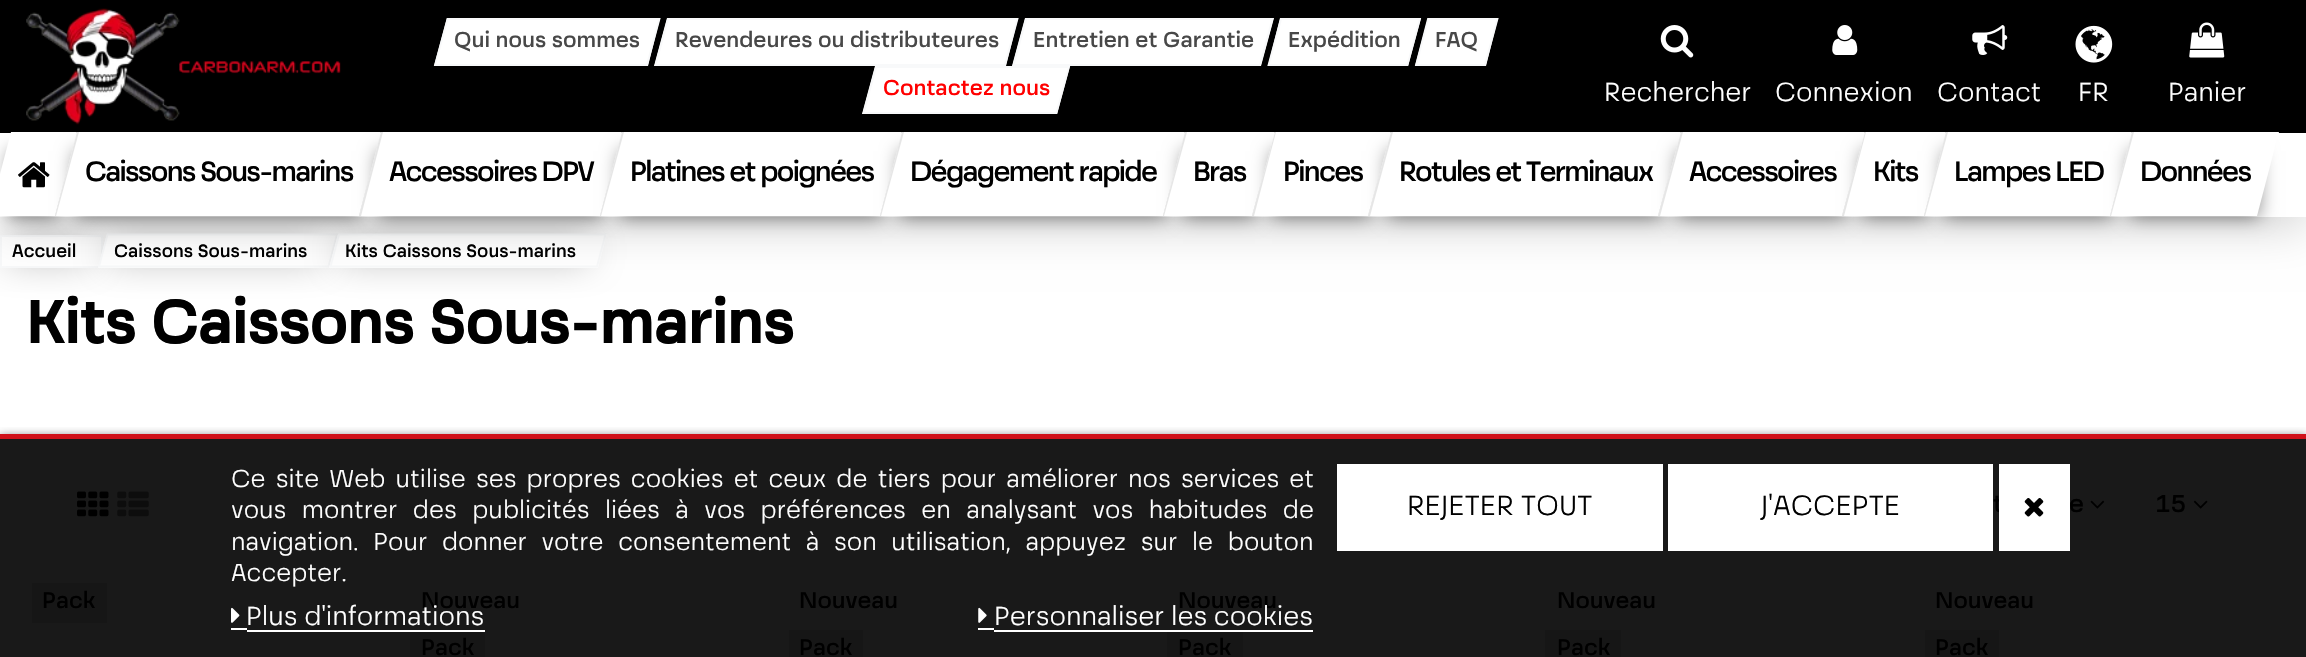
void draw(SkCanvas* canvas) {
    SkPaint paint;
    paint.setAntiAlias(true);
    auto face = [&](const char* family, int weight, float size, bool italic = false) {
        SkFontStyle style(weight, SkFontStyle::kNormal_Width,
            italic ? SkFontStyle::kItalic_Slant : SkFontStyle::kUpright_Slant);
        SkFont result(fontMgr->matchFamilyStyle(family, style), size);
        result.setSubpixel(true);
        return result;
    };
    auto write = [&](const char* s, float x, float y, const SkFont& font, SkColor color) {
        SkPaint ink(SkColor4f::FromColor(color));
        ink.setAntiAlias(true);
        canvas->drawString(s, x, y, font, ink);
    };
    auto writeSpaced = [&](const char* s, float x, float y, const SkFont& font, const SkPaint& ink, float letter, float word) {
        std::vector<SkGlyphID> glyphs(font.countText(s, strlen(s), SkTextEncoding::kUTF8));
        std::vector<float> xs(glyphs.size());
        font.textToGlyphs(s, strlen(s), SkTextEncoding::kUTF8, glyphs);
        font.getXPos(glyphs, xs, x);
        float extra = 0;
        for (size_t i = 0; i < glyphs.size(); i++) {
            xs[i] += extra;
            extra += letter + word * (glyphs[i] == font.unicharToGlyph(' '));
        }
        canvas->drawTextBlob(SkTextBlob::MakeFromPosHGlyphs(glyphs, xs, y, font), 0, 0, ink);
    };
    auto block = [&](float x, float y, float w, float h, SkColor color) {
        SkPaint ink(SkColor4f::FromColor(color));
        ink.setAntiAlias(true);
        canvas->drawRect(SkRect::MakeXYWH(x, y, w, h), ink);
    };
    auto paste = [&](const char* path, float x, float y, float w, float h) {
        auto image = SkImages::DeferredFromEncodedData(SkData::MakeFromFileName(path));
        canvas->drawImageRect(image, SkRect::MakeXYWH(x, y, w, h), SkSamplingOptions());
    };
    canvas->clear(SK_ColorWHITE);
    block(0, 439, 2306, 218, SkColorSetRGB(25, 25, 25));
    paint.setColor(SkColorSetARGB(128, 0, 0, 0));
    paint.setMaskFilter(SkMaskFilter::MakeBlur(kNormal_SkBlurStyle, 17.5f));
    canvas->drawRect(SkRect::MakeXYWH(7, 245, 82, 12), paint);
    paint.setMaskFilter(nullptr);
    paint.setColor(SK_ColorWHITE);
    canvas->drawRect(SkRect::MakeXYWH(1, 236, 101, 31), paint);
    paint.setStyle(SkPaint::kStroke_Style);
    paint.setStrokeWidth(2);
    paint.setColor(SkColorSetRGB(248, 249, 250));
    canvas->drawRect(SkRect::MakeXYWH(1, 236, 101, 31), paint);
    paint.setStyle(SkPaint::kFill_Style);
    paint.setColor(SkColorSetARGB(128, 0, 0, 0));
    paint.setMaskFilter(SkMaskFilter::MakeBlur(kNormal_SkBlurStyle, 17.5f));
    canvas->drawRect(SkRect::MakeXYWH(110, 245, 210, 12), paint);
    paint.setMaskFilter(nullptr);
    paint.setColor(SK_ColorWHITE);
    canvas->drawPath(SkPathBuilder().moveTo(107, 234).lineTo(338, 234).lineTo(329, 268).lineTo(98, 268).close().detach(), paint);
    paint.setStyle(SkPaint::kStroke_Style);
    paint.setStrokeWidth(1.8f);
    paint.setColor(SkColorSetRGB(248, 249, 250));
    canvas->drawPath(SkPathBuilder().moveTo(107.5f, 234.5f).lineTo(337, 234.5f).lineTo(328.5f, 266.5f).lineTo(99, 266.5f).close().detach(), paint);
    paint.setStyle(SkPaint::kFill_Style);
    paint.setColor(SkColorSetARGB(128, 0, 0, 0));
    paint.setMaskFilter(SkMaskFilter::MakeBlur(kNormal_SkBlurStyle, 17.5f));
    canvas->drawRect(SkRect::MakeXYWH(341, 245, 247, 12), paint);
    paint.setMaskFilter(nullptr);
    paint.setColor(SK_ColorWHITE);
    canvas->drawPath(SkPathBuilder().moveTo(338, 234).lineTo(607, 234).lineTo(598, 268).lineTo(329, 268).close().detach(), paint);
    paint.setStyle(SkPaint::kStroke_Style);
    paint.setColor(SkColorSetRGB(248, 249, 250));
    canvas->drawPath(SkPathBuilder().moveTo(339, 234.5f).lineTo(605.5f, 234.5f).lineTo(597, 266.5f).lineTo(330.5f, 266.5f).close().detach(), paint);
    paint.setStyle(SkPaint::kFill_Style);
    paint.setColor(SkColorSetARGB(46, 0, 0, 0));
    paint.setMaskFilter(SkMaskFilter::MakeBlur(kNormal_SkBlurStyle, 22));
    canvas->drawRect(SkRect::MakeXYWH(0, 9, 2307, 217), paint);
    paint.setMaskFilter(nullptr);
    block(0, 0, 2306, 133, SK_ColorBLACK);
    paste("pic1.png", 26, 8, 315, 117);
    paint.setColor(SK_ColorWHITE);
    canvas->drawPath(SkPathBuilder().moveTo(447, 18).lineTo(660, 18).lineTo(648, 66).lineTo(434, 66).close().detach(), paint);
    paint.setStyle(SkPaint::kStroke_Style);
    paint.setColor(SkColorSetRGB(248, 249, 250));
    canvas->drawPath(SkPathBuilder().moveTo(447.5f, 19).lineTo(659.5f, 19).lineTo(647, 65).lineTo(435, 65).close().detach(), paint);
    auto kFont1 = face("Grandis", 500, 21.5f);
    write("Qui nous sommes", 454, 47, kFont1, SkColorSetRGB(72, 72, 72));
    paint.setStyle(SkPaint::kFill_Style);
    paint.setColor(SK_ColorWHITE);
    canvas->drawPath(SkPathBuilder().moveTo(667, 18).lineTo(1018, 18).lineTo(1006, 66).lineTo(654, 66).close().detach(), paint);
    paint.setStyle(SkPaint::kStroke_Style);
    paint.setColor(SkColorSetRGB(248, 249, 250));
    canvas->drawPath(SkPathBuilder().moveTo(668, 19).lineTo(1017.5f, 19).lineTo(1005, 65).lineTo(655.5f, 65).close().detach(), paint);
    write("Revendeures ou distributeures", 675, 47, kFont1, SkColorSetRGB(72, 72, 72));
    paint.setStyle(SkPaint::kFill_Style);
    paint.setColor(SK_ColorWHITE);
    canvas->drawPath(SkPathBuilder().moveTo(1025, 18).lineTo(1274, 18).lineTo(1261, 66).lineTo(1012, 66).close().detach(), paint);
    paint.setStyle(SkPaint::kStroke_Style);
    paint.setColor(SkColorSetRGB(248, 249, 250));
    canvas->drawPath(SkPathBuilder().moveTo(1026, 19).lineTo(1272.5f, 19).lineTo(1260, 65).lineTo(1013.5f, 65).close().detach(), paint);
    write("Entretien et Garantie", 1033, 47, kFont1, SkColorSetRGB(72, 72, 72));
    paint.setStyle(SkPaint::kFill_Style);
    paint.setColor(SK_ColorWHITE);
    canvas->drawPath(SkPathBuilder().moveTo(1280, 18).lineTo(1421, 18).lineTo(1408, 66).lineTo(1268, 66).close().detach(), paint);
    paint.setStyle(SkPaint::kStroke_Style);
    paint.setColor(SkColorSetRGB(248, 249, 250));
    canvas->drawPath(SkPathBuilder().moveTo(1281, 19).lineTo(1420, 19).lineTo(1407.5f, 65).lineTo(1268.5f, 65).close().detach(), paint);
    write("Expédition", 1288, 47, kFont1, SkColorSetRGB(72, 72, 72));
    paint.setStyle(SkPaint::kFill_Style);
    paint.setColor(SK_ColorWHITE);
    canvas->drawPath(SkPathBuilder().moveTo(1428, 18).lineTo(1498, 18).lineTo(1486, 66).lineTo(1415, 66).close().detach(), paint);
    paint.setStyle(SkPaint::kStroke_Style);
    paint.setColor(SkColorSetRGB(248, 249, 250));
    canvas->drawPath(SkPathBuilder().moveTo(1428, 19).lineTo(1497.5f, 19).lineTo(1485, 65).lineTo(1416, 65).close().detach(), paint);
    write("FAQ", 1435, 47, kFont1, SkColorSetRGB(72, 72, 72));
    paint.setStyle(SkPaint::kFill_Style);
    paint.setColor(SK_ColorWHITE);
    canvas->drawPath(SkPathBuilder().moveTo(875, 66).lineTo(1070, 66).lineTo(1057, 114).lineTo(862, 114).close().detach(), paint);
    paint.setStyle(SkPaint::kStroke_Style);
    paint.setColor(SkColorSetRGB(248, 249, 250));
    canvas->drawPath(SkPathBuilder().moveTo(876, 67).lineTo(1069, 67).lineTo(1056.5f, 113).lineTo(863.5f, 113).close().detach(), paint);
    write("Contactez nous", 883, 95, kFont1, SkColorSetRGB(255, 0, 0));
    paste("pic2.png", 1660, 25, 34, 33);
    auto kFont2 = face("Grandis", 300, 26.25f);
    write("Rechercher", 1604, 101, kFont2, SK_ColorWHITE);
    paste("pic3.png", 1832, 25, 26, 30);
    write("Connexion", 1775, 101, kFont2, SK_ColorWHITE);
    paste("pic4.png", 1972, 25, 36, 30);
    write("Contact", 1937, 101, kFont2, SK_ColorWHITE);
    paste("pic5.png", 2075, 25, 38, 38);
    write("FR", 2078, 101, kFont2, SK_ColorWHITE);
    paste("pic6.png", 2189, 22, 36, 36);
    write("Panier", 2168, 101, kFont2, SK_ColorWHITE);
    block(0, 133, 2306, 84, SK_ColorWHITE);
    paint.setStyle(SkPaint::kFill_Style);
    paint.setColor(SkColorSetARGB(128, 0, 0, 0));
    paint.setMaskFilter(SkMaskFilter::MakeBlur(kNormal_SkBlurStyle, 9));
    canvas->drawRect(SkRect::MakeXYWH(9, 151, 49, 66), paint);
    paint.setMaskFilter(nullptr);
    paint.setColor(SK_ColorWHITE);
    canvas->drawPath(SkPathBuilder().moveTo(11, 132).lineTo(77, 132).lineTo(55, 216).lineTo(-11, 216).close().detach(), paint);
    paste("pic7.png", 18, 162, 32, 26);
    paint.setColor(SkColorSetARGB(128, 0, 0, 0));
    paint.setMaskFilter(SkMaskFilter::MakeBlur(kNormal_SkBlurStyle, 9));
    canvas->drawRect(SkRect::MakeXYWH(75, 151, 286, 66), paint);
    paint.setMaskFilter(nullptr);
    paint.setColor(SK_ColorWHITE);
    canvas->drawPath(SkPathBuilder().moveTo(77, 132).lineTo(381, 132).lineTo(359, 216).lineTo(55, 216).close().detach(), paint);
    paint.setColor(SkColorSetRGB(230, 230, 230));
    canvas->drawPath(SkPathBuilder().moveTo(77, 132).lineTo(79, 132).lineTo(56, 216).lineTo(55, 216).close().detach(), paint);
    auto kFont3 = face("Grandis", 500, 28);
    paint.setColor(SK_ColorBLACK);
    writeSpaced("Caissons Sous-marins", 85, 181, kFont3, paint, -1.75f, 0);
    paint.setColor(SkColorSetARGB(128, 0, 0, 0));
    paint.setMaskFilter(SkMaskFilter::MakeBlur(kNormal_SkBlurStyle, 9));
    canvas->drawRect(SkRect::MakeXYWH(378, 151, 224, 66), paint);
    paint.setMaskFilter(nullptr);
    paint.setColor(SK_ColorWHITE);
    canvas->drawPath(SkPathBuilder().moveTo(381, 132).lineTo(622, 132).lineTo(600, 216).lineTo(359, 216).close().detach(), paint);
    paint.setColor(SkColorSetRGB(230, 230, 230));
    canvas->drawPath(SkPathBuilder().moveTo(381, 132).lineTo(383, 132).lineTo(361, 216).lineTo(359, 216).close().detach(), paint);
    paint.setColor(SK_ColorBLACK);
    writeSpaced("Accessoires DPV", 389, 181, kFont3, paint, -1.75f, 0);
    paint.setColor(SkColorSetARGB(128, 0, 0, 0));
    paint.setMaskFilter(SkMaskFilter::MakeBlur(kNormal_SkBlurStyle, 9));
    canvas->drawRect(SkRect::MakeXYWH(620, 151, 262, 66), paint);
    paint.setMaskFilter(nullptr);
    paint.setColor(SK_ColorWHITE);
    canvas->drawPath(SkPathBuilder().moveTo(622, 132).lineTo(902, 132).lineTo(880, 216).lineTo(600, 216).close().detach(), paint);
    paint.setColor(SkColorSetRGB(230, 230, 230));
    canvas->drawPath(SkPathBuilder().moveTo(622, 132).lineTo(624, 132).lineTo(601, 216).lineTo(600, 216).close().detach(), paint);
    paint.setColor(SK_ColorBLACK);
    writeSpaced("Platines et poignées", 630, 181, kFont3, paint, -1.75f, 0);
    paint.setColor(SkColorSetARGB(128, 0, 0, 0));
    paint.setMaskFilter(SkMaskFilter::MakeBlur(kNormal_SkBlurStyle, 9));
    canvas->drawRect(SkRect::MakeXYWH(900, 151, 266, 66), paint);
    paint.setMaskFilter(nullptr);
    paint.setColor(SK_ColorWHITE);
    canvas->drawPath(SkPathBuilder().moveTo(902, 132).lineTo(1185, 132).lineTo(1163, 216).lineTo(880, 216).close().detach(), paint);
    paint.setColor(SkColorSetRGB(230, 230, 230));
    canvas->drawPath(SkPathBuilder().moveTo(902, 132).lineTo(904, 132).lineTo(881, 216).lineTo(880, 216).close().detach(), paint);
    paint.setColor(SK_ColorBLACK);
    writeSpaced("Dégagement rapide", 910, 181, kFont3, paint, -1.75f, 0);
    paint.setColor(SkColorSetARGB(128, 0, 0, 0));
    paint.setMaskFilter(SkMaskFilter::MakeBlur(kNormal_SkBlurStyle, 9));
    canvas->drawRect(SkRect::MakeXYWH(1183, 151, 72, 66), paint);
    paint.setMaskFilter(nullptr);
    paint.setColor(SK_ColorWHITE);
    canvas->drawPath(SkPathBuilder().moveTo(1185, 132).lineTo(1275, 132).lineTo(1252, 216).lineTo(1163, 216).close().detach(), paint);
    paint.setColor(SkColorSetRGB(230, 230, 230));
    canvas->drawPath(SkPathBuilder().moveTo(1185, 132).lineTo(1187, 132).lineTo(1164, 216).lineTo(1163, 216).close().detach(), paint);
    paint.setColor(SK_ColorBLACK);
    writeSpaced("Bras", 1193, 181, kFont3, paint, -1.75f, 0);
    paint.setColor(SkColorSetARGB(128, 0, 0, 0));
    paint.setMaskFilter(SkMaskFilter::MakeBlur(kNormal_SkBlurStyle, 9));
    canvas->drawRect(SkRect::MakeXYWH(1272, 151, 98, 66), paint);
    paint.setMaskFilter(nullptr);
    paint.setColor(SK_ColorWHITE);
    canvas->drawPath(SkPathBuilder().moveTo(1275, 132).lineTo(1391, 132).lineTo(1368, 216).lineTo(1252, 216).close().detach(), paint);
    paint.setColor(SkColorSetRGB(230, 230, 230));
    canvas->drawPath(SkPathBuilder().moveTo(1275, 132).lineTo(1276, 132).lineTo(1254, 216).lineTo(1252, 216).close().detach(), paint);
    paint.setColor(SK_ColorBLACK);
    writeSpaced("Pinces", 1283, 181, kFont3, paint, -1.75f, 0);
    paint.setColor(SkColorSetARGB(128, 0, 0, 0));
    paint.setMaskFilter(SkMaskFilter::MakeBlur(kNormal_SkBlurStyle, 9));
    canvas->drawRect(SkRect::MakeXYWH(1388, 151, 273, 66), paint);
    paint.setMaskFilter(nullptr);
    paint.setColor(SK_ColorWHITE);
    canvas->drawPath(SkPathBuilder().moveTo(1391, 132).lineTo(1681, 132).lineTo(1658, 216).lineTo(1368, 216).close().detach(), paint);
    paint.setColor(SkColorSetRGB(230, 230, 230));
    canvas->drawPath(SkPathBuilder().moveTo(1391, 132).lineTo(1393, 132).lineTo(1370, 216).lineTo(1368, 216).close().detach(), paint);
    paint.setColor(SK_ColorBLACK);
    writeSpaced("Rotules et Terminaux", 1399, 181, kFont3, paint, -1.75f, 0);
    paint.setColor(SkColorSetARGB(128, 0, 0, 0));
    paint.setMaskFilter(SkMaskFilter::MakeBlur(kNormal_SkBlurStyle, 9));
    canvas->drawRect(SkRect::MakeXYWH(1678, 151, 167, 66), paint);
    paint.setMaskFilter(nullptr);
    paint.setColor(SK_ColorWHITE);
    canvas->drawPath(SkPathBuilder().moveTo(1681, 132).lineTo(1865, 132).lineTo(1842, 216).lineTo(1658, 216).close().detach(), paint);
    paint.setColor(SkColorSetRGB(230, 230, 230));
    canvas->drawPath(SkPathBuilder().moveTo(1681, 132).lineTo(1683, 132).lineTo(1660, 216).lineTo(1658, 216).close().detach(), paint);
    paint.setColor(SK_ColorBLACK);
    writeSpaced("Accessoires", 1689, 181, kFont3, paint, -1.75f, 0);
    paint.setColor(SkColorSetARGB(128, 0, 0, 0));
    paint.setMaskFilter(SkMaskFilter::MakeBlur(kNormal_SkBlurStyle, 9));
    canvas->drawRect(SkRect::MakeXYWH(1862, 151, 65, 66), paint);
    paint.setMaskFilter(nullptr);
    paint.setColor(SK_ColorWHITE);
    canvas->drawPath(SkPathBuilder().moveTo(1865, 132).lineTo(1946, 132).lineTo(1924, 216).lineTo(1842, 216).close().detach(), paint);
    paint.setColor(SkColorSetRGB(230, 230, 230));
    canvas->drawPath(SkPathBuilder().moveTo(1865, 132).lineTo(1866, 132).lineTo(1844, 216).lineTo(1842, 216).close().detach(), paint);
    paint.setColor(SK_ColorBLACK);
    writeSpaced("Kits", 1873, 181, kFont3, paint, -1.75f, 0);
    paint.setColor(SkColorSetARGB(128, 0, 0, 0));
    paint.setMaskFilter(SkMaskFilter::MakeBlur(kNormal_SkBlurStyle, 9));
    canvas->drawRect(SkRect::MakeXYWH(1944, 151, 168, 66), paint);
    paint.setMaskFilter(nullptr);
    paint.setColor(SK_ColorWHITE);
    canvas->drawPath(SkPathBuilder().moveTo(1946, 132).lineTo(2132, 132).lineTo(2110, 216).lineTo(1924, 216).close().detach(), paint);
    paint.setColor(SkColorSetRGB(230, 230, 230));
    canvas->drawPath(SkPathBuilder().moveTo(1946, 132).lineTo(1948, 132).lineTo(1925, 216).lineTo(1924, 216).close().detach(), paint);
    paint.setColor(SK_ColorBLACK);
    writeSpaced("Lampes LED", 1954, 181, kFont3, paint, -1.75f, 0);
    paint.setColor(SkColorSetARGB(128, 0, 0, 0));
    paint.setMaskFilter(SkMaskFilter::MakeBlur(kNormal_SkBlurStyle, 9));
    canvas->drawRect(SkRect::MakeXYWH(2130, 151, 129, 66), paint);
    paint.setMaskFilter(nullptr);
    paint.setColor(SK_ColorWHITE);
    canvas->drawPath(SkPathBuilder().moveTo(2132, 132).lineTo(2279, 132).lineTo(2257, 216).lineTo(2110, 216).close().detach(), paint);
    paint.setColor(SkColorSetRGB(230, 230, 230));
    canvas->drawPath(SkPathBuilder().moveTo(2132, 132).lineTo(2134, 132).lineTo(2111, 216).lineTo(2110, 216).close().detach(), paint);
    paint.setColor(SK_ColorBLACK);
    writeSpaced("Données", 2140, 181, kFont3, paint, -1.75f, 0);
    auto kFont4 = face("Grandis", 500, 17.9f);
    write("Accueil", 12, 257, kFont4, SK_ColorBLACK);
    write("Caissons Sous-marins", 114, 257, kFont4, SK_ColorBLACK);
    write("Kits Caissons Sous-marins", 345, 257, kFont4, SK_ColorBLACK);
    auto kFont5 = face("Grandis", 700, 59.5f);
    write("Kits Caissons Sous-marins", 26, 343, kFont5, SK_ColorBLACK);
    paste("pic8.png", 77, 491, 32, 26);
    paste("pic9.png", 117, 491, 32, 26);
    auto kFont6 = face("Grandis", 500, 24.5f);
    write("t", 1993, 512, kFont6, SK_ColorBLACK);
    write("e", 2069, 512, kFont6, SK_ColorBLACK);
    paste("pic10.png", 2090, 500, 15, 9);
    write("15", 2155, 512, kFont6, SK_ColorBLACK);
    paste("pic11.png", 2193, 500, 15, 9);
    block(32, 583, 75, 40, SkColorSetRGB(22, 22, 22));
    auto kFont7 = face("Grandis", 500, 22.75f);
    write("Pack", 42, 608, kFont7, SK_ColorBLACK);
    write("Nouveau", 421, 608, kFont7, SK_ColorBLACK);
    block(410, 632, 75, 25, SkColorSetRGB(22, 22, 22));
    write("Pack", 421, 655, kFont7, SK_ColorBLACK);
    write("Nouveau", 799, 608, kFont7, SK_ColorBLACK);
    block(789, 630, 74, 27, SkColorSetRGB(22, 22, 22));
    write("Pack", 799, 655, kFont7, SK_ColorBLACK);
    write("Nouveau", 1178, 608, kFont7, SK_ColorBLACK);
    block(1167, 632, 76, 25, SkColorSetRGB(22, 22, 22));
    write("Pack", 1178, 655, kFont7, SK_ColorBLACK);
    write("Nouveau", 1557, 608, kFont7, SK_ColorBLACK);
    block(1545, 630, 76, 27, SkColorSetRGB(22, 22, 22));
    write("Pack", 1557, 655, kFont7, SK_ColorBLACK);
    write("Nouveau", 1935, 608, kFont7, SK_ColorBLACK);
    block(1925, 630, 74, 27, SkColorSetRGB(22, 22, 22));
    write("Pack", 1935, 655, kFont7, SK_ColorBLACK);
    canvas->save();
    canvas->clipRect(SkRect::MakeXYWH(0, 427, 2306, 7));
    paint.setColor(SkColorSetRGB(112, 112, 112));
    paint.setMaskFilter(SkMaskFilter::MakeBlur(kNormal_SkBlurStyle, 4.5f));
    canvas->drawRect(SkRect::MakeXYWH(0, 436, 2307, 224), paint);
    paint.setMaskFilter(nullptr);
    canvas->restore();
    block(0, 434, 2306, 5, SkColorSetRGB(208, 18, 26));
    auto kFont8 = face("Grandis", 300, 24.5f);
    paint.setColor(SK_ColorWHITE);
    writeSpaced("Ce site Web utilise ses propres cookies et ceux de tiers pour améliorer nos services et", 231, 487, kFont8, paint, 0, 3.9f);
    writeSpaced("vous montrer des publicités liées à vos préférences en analysant vos habitudes de", 231, 518, kFont8, paint, 0, 9.25f);
    writeSpaced("navigation. Pour donner votre consentement à son utilisation, appuyez sur le bouton", 231, 550, kFont8, paint, 0, 8.4f);
    write("Accepter.", 231, 581, kFont8, SK_ColorWHITE);
    block(231, 628, 16, 2, SK_ColorWHITE);
    block(247, 630, 238, 2, SK_ColorWHITE);
    paste("pic12.png", 231, 607, 9, 16);
    write("Plus d'informations", 246, 625, kFont2, SK_ColorWHITE);
    block(978, 628, 16, 2, SK_ColorWHITE);
    block(994, 630, 319, 2, SK_ColorWHITE);
    paste("pic13.png", 978, 607, 9, 16);
    write("Personnaliser les cookies", 994, 625, kFont2, SK_ColorWHITE);
    block(1337, 464, 326, 87, SK_ColorWHITE);
    auto kFont9 = face("Grandis", 300, 28);
    write("REJETER TOUT", 1407, 515, kFont9, SK_ColorBLACK);
    block(1668, 464, 325, 87, SK_ColorWHITE);
    write("J'ACCEPTE", 1761, 515, kFont9, SK_ColorBLACK);
    block(1999, 464, 71, 87, SK_ColorWHITE);
    paste("pic14.png", 2024, 498, 20, 19);
}
